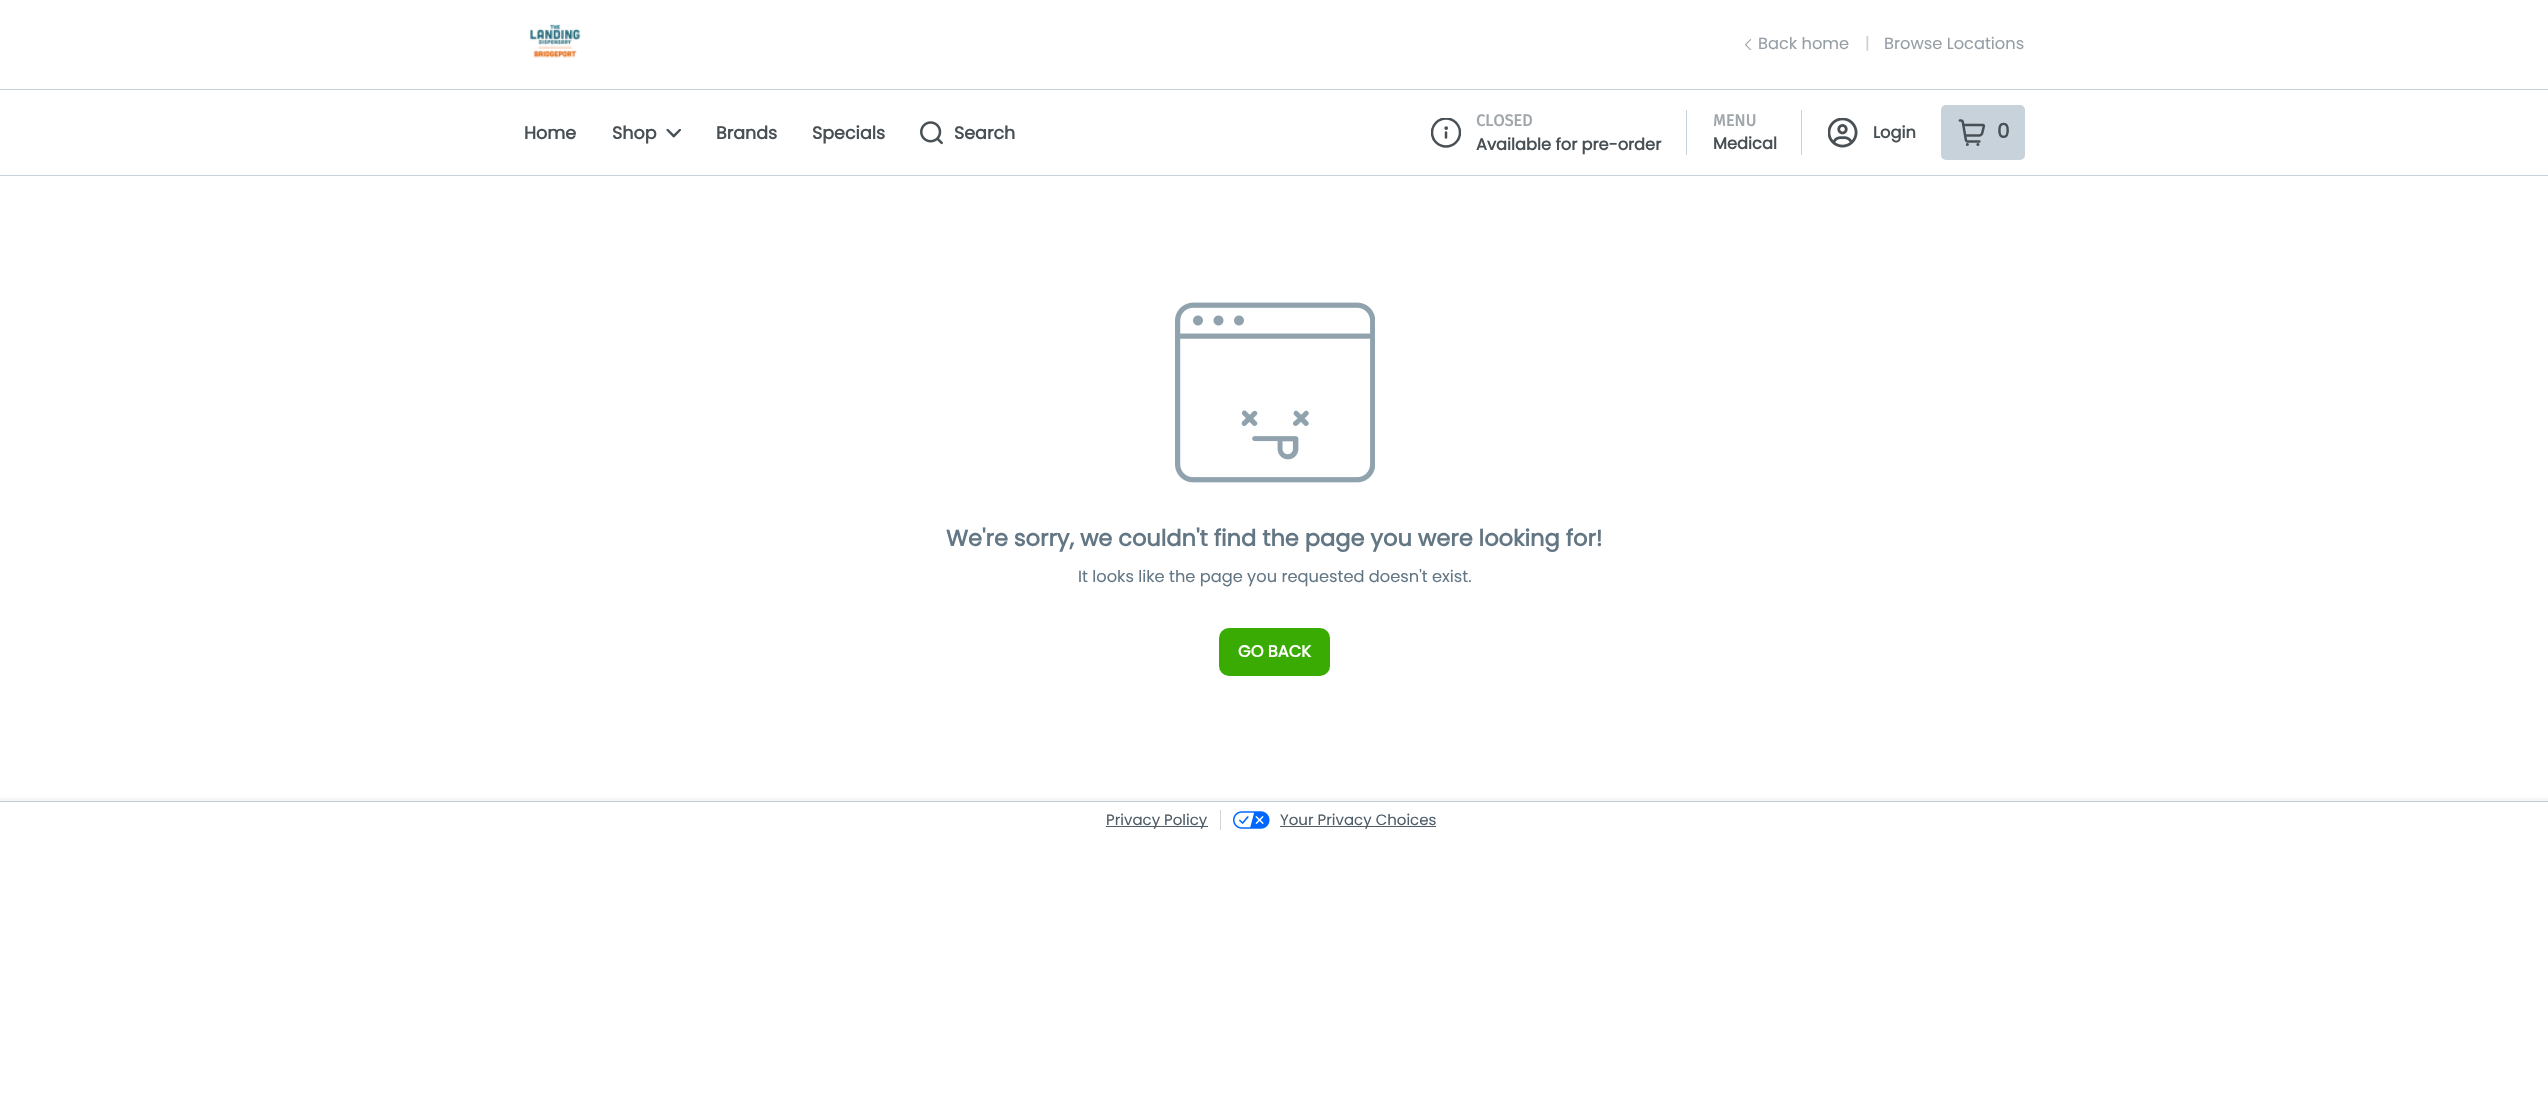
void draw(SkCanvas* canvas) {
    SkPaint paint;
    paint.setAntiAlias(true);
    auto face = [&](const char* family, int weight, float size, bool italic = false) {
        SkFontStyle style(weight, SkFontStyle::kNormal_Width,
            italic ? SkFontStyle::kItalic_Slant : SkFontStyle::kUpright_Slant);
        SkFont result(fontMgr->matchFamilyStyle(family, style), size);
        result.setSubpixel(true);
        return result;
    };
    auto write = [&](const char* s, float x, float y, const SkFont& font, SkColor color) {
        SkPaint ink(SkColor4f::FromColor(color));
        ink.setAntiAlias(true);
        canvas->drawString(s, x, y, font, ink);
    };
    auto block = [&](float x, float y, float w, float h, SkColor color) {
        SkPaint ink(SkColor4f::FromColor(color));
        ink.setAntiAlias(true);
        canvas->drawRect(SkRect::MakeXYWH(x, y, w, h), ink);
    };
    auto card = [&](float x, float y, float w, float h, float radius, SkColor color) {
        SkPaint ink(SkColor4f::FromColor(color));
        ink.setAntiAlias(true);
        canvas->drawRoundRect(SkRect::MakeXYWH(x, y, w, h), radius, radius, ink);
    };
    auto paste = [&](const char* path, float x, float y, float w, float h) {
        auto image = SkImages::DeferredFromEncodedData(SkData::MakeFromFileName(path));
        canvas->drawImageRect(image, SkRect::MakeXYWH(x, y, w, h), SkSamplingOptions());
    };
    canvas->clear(SK_ColorWHITE);
    block(0, 89, 2548, 1, SkColorSetRGB(197, 208, 215));
    paste("pic1.png", 529, 24, 52, 34);
    paste("pic2.png", 1745, 39, 6, 11);
    auto kFont1 = face("Poppins", 400, 16.25f);
    write("Back home", 1758, 49, kFont1, SkColorSetRGB(150, 158, 165));
    write("|", 1865, 49, kFont1, SkColorSetRGB(203, 207, 210));
    write("Browse Locations", 1884, 49, kFont1, SkColorSetRGB(150, 158, 165));
    block(0, 175, 2548, 1, SkColorSetRGB(200, 210, 219));
    auto kFont2 = face("Poppins", 700, 17.5f);
    write("Home", 524, 139, kFont2, SkColorSetRGB(72, 80, 85));
    write("Shop", 612, 139, kFont2, SkColorSetRGB(72, 80, 85));
    paste("pic3.png", 666, 129, 15, 9);
    write("Brands", 716, 139, kFont2, SkColorSetRGB(72, 80, 85));
    write("Specials", 812, 139, kFont2, SkColorSetRGB(72, 80, 85));
    paste("pic4.png", 920, 121, 23, 24);
    write("Search", 954, 139, kFont2, SkColorSetRGB(72, 80, 85));
    canvas->save();
    canvas->clipRect(SkRect::MakeXYWH(1431, 118, 30, 30));
    paint.setStyle(SkPaint::kStroke_Style);
    paint.setStrokeWidth(2.5f);
    paint.setColor(SkColorSetRGB(72, 80, 85));
    canvas->drawCircle(1446, 132.5f, 14, paint);
    canvas->restore();
    paint.setStrokeCap(SkPaint::kRound_Cap);
    canvas->drawPath(SkPathBuilder().moveTo(1446, 132.5f).lineTo(1446, 137.5f).detach(), paint);
    paint.setStyle(SkPaint::kFill_Style);
    canvas->drawCircle(1446.2f, 128.1f, 1.9f, paint);
    auto kFont3 = face("Fira Sans", 700, 16.25f);
    write("CLOSED", 1476, 126, kFont3, SkColorSetRGB(160, 167, 171));
    auto kFont4 = face("Poppins", 700, 16.25f);
    write("Available for pre-order", 1476, 150, kFont4, SkColorSetRGB(72, 80, 85));
    block(1686, 110, 1, 45, SkColorSetRGB(200, 210, 219));
    write("MENU", 1713, 126, kFont3, SkColorSetRGB(160, 167, 171));
    write("Medical", 1713, 149, kFont4, SkColorSetRGB(72, 80, 85));
    block(1801, 110, 1, 45, SkColorSetRGB(200, 210, 219));
    paste("pic5.png", 1828, 118, 30, 30);
    write("Login", 1873, 138, kFont4, SkColorSetRGB(72, 80, 85));
    card(1941, 105, 84, 55, 5, SkColorSetRGB(200, 210, 219));
    paste("pic6.png", 1958, 119, 28, 27);
    auto kFont5 = face("Poppins", 700, 20);
    write("0", 1997, 138, kFont5, SkColorSetRGB(72, 80, 85));
    paste("pic7.png", 1175, 302, 200, 181);
    auto kFont6 = face("Poppins", 700, 22.5f);
    write("We're sorry, we couldn't find the page you were looking for!", 946, 546, kFont6, SkColorSetRGB(99, 118, 132));
    write("It looks like the page you requested doesn't exist.", 1078, 582, kFont1, SkColorSetRGB(99, 118, 132));
    card(1219, 628, 111, 48, 10, SkColorSetRGB(57, 171, 3));
    write("GO BACK", 1238, 657, kFont4, SK_ColorWHITE);
    paint.setColor(SkColorSetARGB(10, 0, 0, 0));
    paint.setMaskFilter(SkMaskFilter::MakeBlur(kNormal_SkBlurStyle, 1));
    canvas->drawRect(SkRect::MakeXYWH(0, 798, 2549, 37), paint);
    paint.setMaskFilter(nullptr);
    block(0, 802, 2548, 34, SK_ColorWHITE);
    block(0, 801, 2548, 1, SkColorSetRGB(188, 202, 210));
    block(1106, 826, 102, 1, SkColorSetRGB(79, 93, 104));
    auto kFont7 = face("Poppins", 400, 15);
    write("Privacy Policy", 1106, 825, kFont7, SkColorSetRGB(79, 93, 104));
    block(1220, 810, 1, 20, SkColorSetRGB(210, 215, 218));
    paste("pic8.png", 1233, 811, 37, 18);
    block(1280, 826, 156, 1, SkColorSetRGB(79, 93, 104));
    write("Your Privacy Choices", 1280, 825, kFont7, SkColorSetRGB(79, 93, 104));
}
